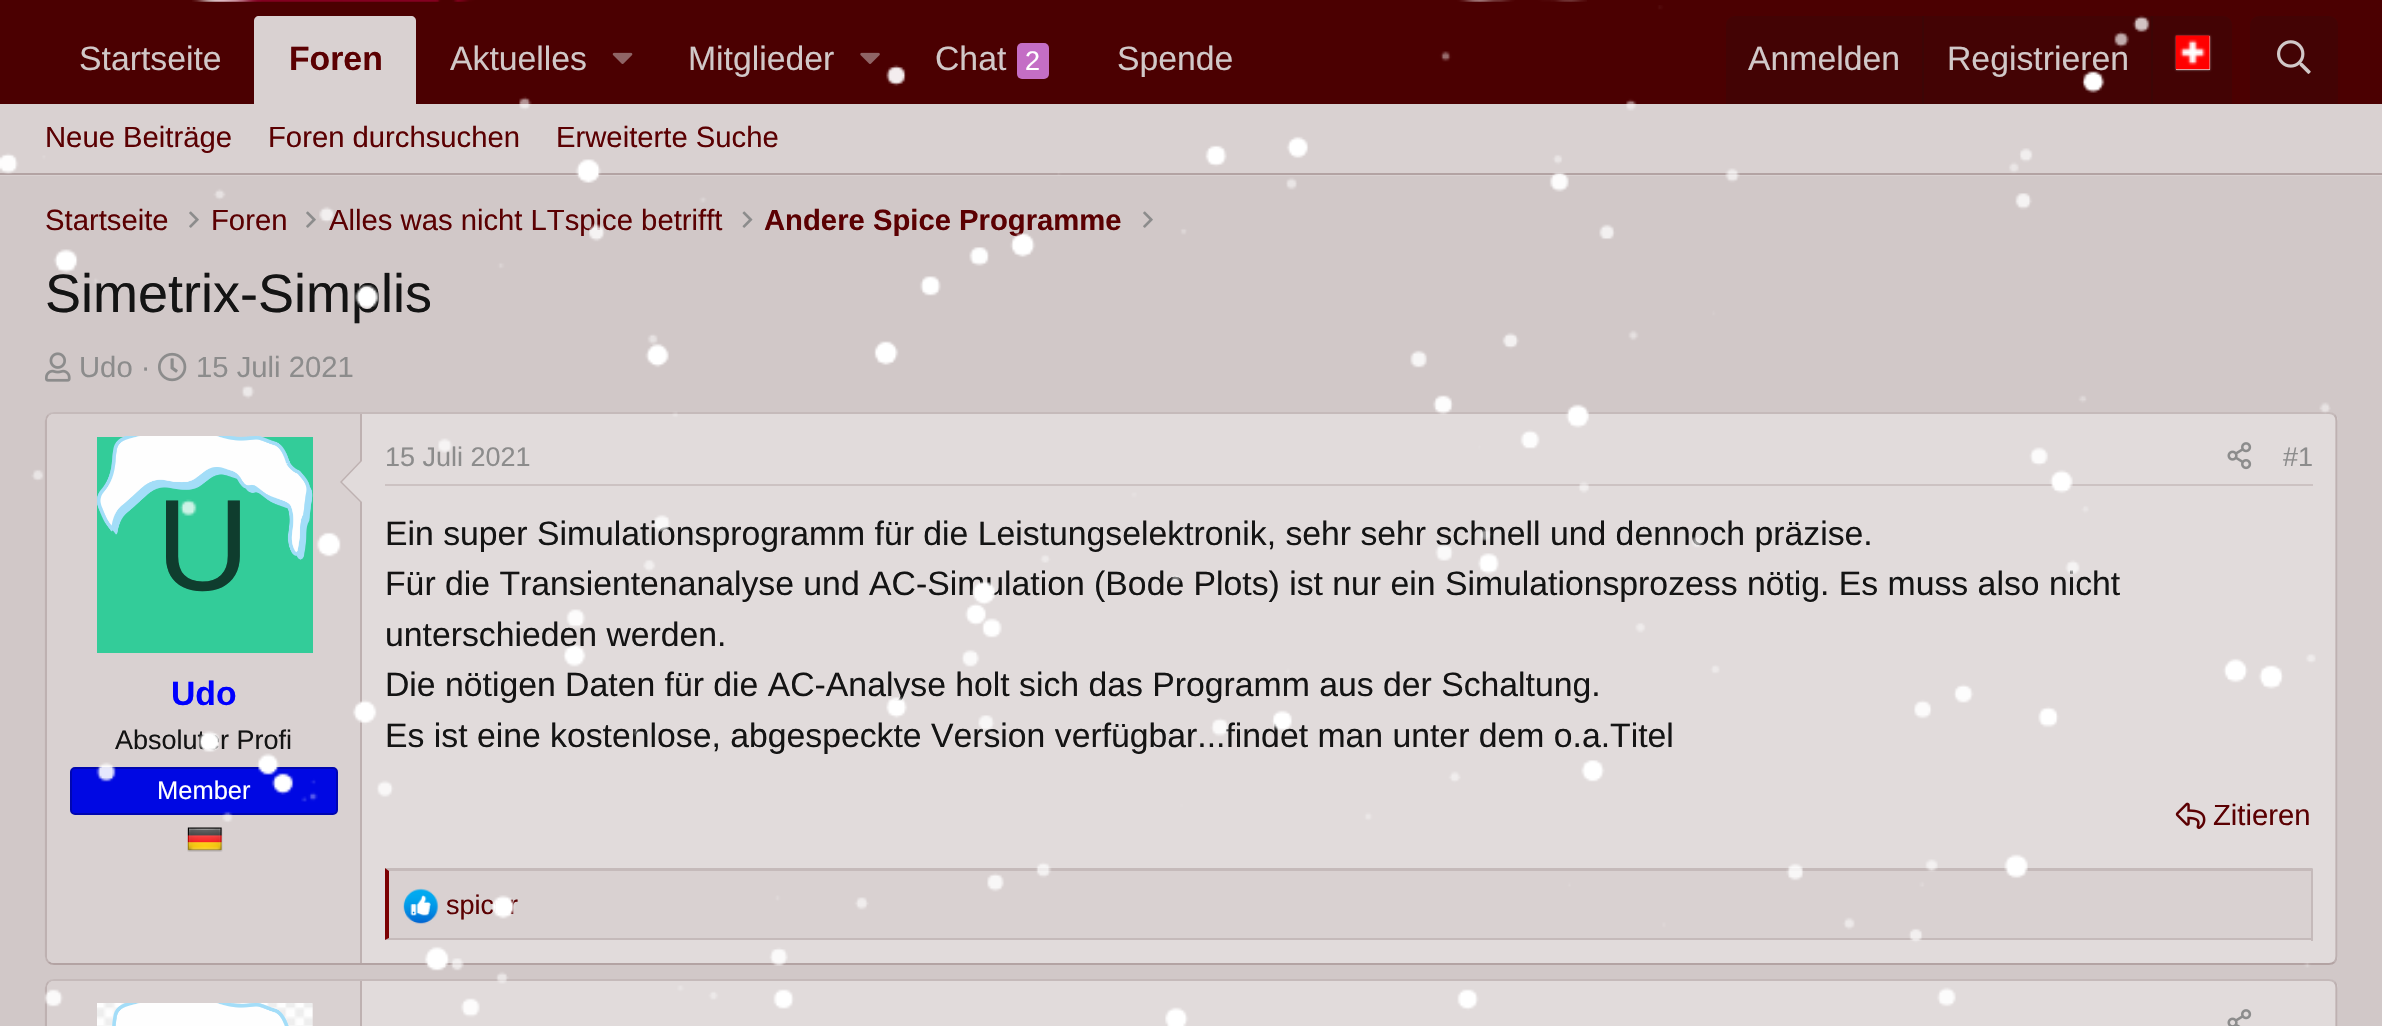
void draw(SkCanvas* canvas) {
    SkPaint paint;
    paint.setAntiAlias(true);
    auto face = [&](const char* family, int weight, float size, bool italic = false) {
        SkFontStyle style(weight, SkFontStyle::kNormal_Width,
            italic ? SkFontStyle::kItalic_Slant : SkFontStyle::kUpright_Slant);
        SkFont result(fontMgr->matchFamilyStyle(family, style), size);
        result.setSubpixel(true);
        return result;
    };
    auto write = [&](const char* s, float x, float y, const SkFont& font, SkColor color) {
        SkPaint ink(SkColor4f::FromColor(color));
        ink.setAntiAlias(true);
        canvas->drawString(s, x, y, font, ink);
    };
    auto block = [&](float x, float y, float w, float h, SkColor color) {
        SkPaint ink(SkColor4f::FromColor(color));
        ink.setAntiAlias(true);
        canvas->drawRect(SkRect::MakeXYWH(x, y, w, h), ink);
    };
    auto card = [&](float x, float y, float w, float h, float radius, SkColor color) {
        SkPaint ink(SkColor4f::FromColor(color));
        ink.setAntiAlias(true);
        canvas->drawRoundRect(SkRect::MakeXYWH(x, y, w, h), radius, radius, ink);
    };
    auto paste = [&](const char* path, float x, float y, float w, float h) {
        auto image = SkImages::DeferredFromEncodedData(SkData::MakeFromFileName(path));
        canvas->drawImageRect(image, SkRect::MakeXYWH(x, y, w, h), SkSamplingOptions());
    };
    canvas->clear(SkColorSetRGB(209, 200, 200));
    block(0, 0, 2382, 104, SkColorSetRGB(75, 0, 1));
    auto kFont1 = face("Liberation Sans", 400, 33.75f);
    write("Startseite", 79, 70, kFont1, SkColorSetRGB(209, 200, 200));
    paint.setColor(SkColorSetRGB(217, 209, 209));
    canvas->drawPath(SkPathBuilder().moveTo(259, 16).lineTo(411, 16).cubicTo(414, 16, 416, 18, 416, 21).lineTo(416, 104).lineTo(254, 104).lineTo(254, 21).cubicTo(254, 18, 256, 16, 259, 16).close().detach(), paint);
    auto kFont2 = face("Liberation Sans", 700, 33.75f);
    write("Foren", 289, 70, kFont2, SkColorSetRGB(91, 0, 2));
    write("Aktuelles", 450, 70, kFont1, SkColorSetRGB(209, 200, 200));
    paste("pic3.png", 612, 52, 21, 12);
    write("Mitglieder", 688, 70, kFont1, SkColorSetRGB(209, 200, 200));
    paste("pic4.png", 860, 52, 20, 12);
    write("Chat", 935, 70, kFont1, SkColorSetRGB(209, 200, 200));
    card(1017, 43, 32, 36, 5, SkColorSetRGB(196, 110, 197));
    auto kFont3 = face("Liberation Sans", 400, 27);
    write("2", 1025, 70, kFont3, SK_ColorWHITE);
    write("Spende", 1117, 70, kFont1, SkColorSetRGB(209, 200, 200));
    paint.setColor(SkColorSetRGB(67, 3, 4));
    canvas->drawPath(SkPathBuilder().moveTo(1735, 16).lineTo(2223, 16).cubicTo(2228, 16, 2232, 20, 2232, 25).lineTo(2232, 104).lineTo(1726, 104).lineTo(1726, 25).cubicTo(1726, 20, 1730, 16, 1735, 16).close().detach(), paint);
    write("Anmelden", 1748, 70, kFont1, SkColorSetRGB(209, 200, 200));
    block(1922, 16, 2, 88, SkColorSetRGB(60, 6, 6));
    write("Registrieren", 1947, 70, kFont1, SkColorSetRGB(209, 200, 200));
    block(2151, 16, 2, 88, SkColorSetRGB(60, 6, 6));
    paint.setColor(SkColorSetRGB(136, 136, 136));
    paint.setMaskFilter(SkMaskFilter::MakeBlur(kNormal_SkBlurStyle, 1));
    canvas->drawRect(SkRect::MakeXYWH(2176, 36, 34, 34), paint);
    paint.setMaskFilter(nullptr);
    block(2176, 36, 34, 34, SkColorSetRGB(219, 219, 219));
    paste("pic5.png", 2175, 35, 36, 35);
    paint.setColor(SkColorSetRGB(67, 3, 4));
    canvas->drawPath(SkPathBuilder().moveTo(2259, 16).lineTo(2329, 16).cubicTo(2334, 16, 2338, 20, 2338, 25).lineTo(2338, 104).lineTo(2250, 104).lineTo(2250, 25).cubicTo(2250, 20, 2254, 16, 2259, 16).close().detach(), paint);
    paste("pic6.png", 2277, 40, 34, 34);
    block(0, 104, 2382, 72, SkColorSetRGB(217, 209, 209));
    block(0, 173, 2382, 2, SkColorSetRGB(179, 163, 163));
    auto kFont4 = face("Liberation Sans", 400, 29.25f);
    write("Neue Beiträge", 45, 147, kFont4, SkColorSetRGB(91, 0, 2));
    write("Foren durchsuchen", 268, 147, kFont4, SkColorSetRGB(91, 0, 2));
    write("Erweiterte Suche", 556, 147, kFont4, SkColorSetRGB(91, 0, 2));
    write("Startseite", 45, 230, kFont4, SkColorSetRGB(91, 0, 2));
    paste("pic7.png", 189, 211, 10, 17);
    write("Foren", 211, 230, kFont4, SkColorSetRGB(91, 0, 2));
    paste("pic7.png", 306, 211, 10, 17);
    write("Alles was nicht LTspice betrifft", 329, 230, kFont4, SkColorSetRGB(91, 0, 2));
    paste("pic8.png", 742, 211, 11, 17);
    auto kFont5 = face("Liberation Sans", 700, 29.25f);
    write("Andere Spice Programme", 764, 230, kFont5, SkColorSetRGB(91, 0, 2));
    paste("pic7.png", 1143, 211, 10, 17);
    auto kFont6 = face("Liberation Sans", 400, 54);
    write("Simetrix-Simplis", 45, 312, kFont6, SkColorSetRGB(20, 20, 20));
    paste("pic9.png", 45, 352, 26, 30);
    write("Udo ·", 79, 377, kFont4, SkColorSetRGB(140, 140, 140));
    paste("pic10.png", 158, 352, 29, 30);
    write("15 Juli 2021", 196, 377, kFont4, SkColorSetRGB(140, 140, 140));
    card(45, 412, 2293, 553, 9, SkColorSetRGB(225, 219, 219));
    paint.setStyle(SkPaint::kStroke_Style);
    paint.setStrokeWidth(2.2f);
    paint.setColor(SkColorSetRGB(197, 186, 186));
    canvas->drawPath(SkPathBuilder().moveTo(48.5f, 415).cubicTo(50, 413.5f, 52, 413, 54, 413).lineTo(2329, 413).cubicTo(2331, 413, 2333, 413.5f, 2334.5f, 415).detach(), paint);
    paint.setColor(SkColorSetRGB(190, 177, 177));
    canvas->drawPath(SkPathBuilder().moveTo(2334.5f, 415).cubicTo(2336, 416.5f, 2336.5f, 418.5f, 2336.5f, 421).lineTo(2336.5f, 956).cubicTo(2336.5f, 958.5f, 2336, 960.5f, 2334.5f, 962).detach(), paint);
    paint.setColor(SkColorSetRGB(179, 163, 163));
    canvas->drawPath(SkPathBuilder().moveTo(2334.5f, 962).cubicTo(2333, 963.5f, 2331, 964, 2329, 964).lineTo(54, 964).cubicTo(52, 964, 50, 963.5f, 48.5f, 962).detach(), paint);
    paint.setColor(SkColorSetRGB(190, 177, 177));
    canvas->drawPath(SkPathBuilder().moveTo(48.5f, 962).cubicTo(47, 960.5f, 46, 958.5f, 46, 956).lineTo(46, 421).cubicTo(46, 418.5f, 47, 416.5f, 48.5f, 415).detach(), paint);
    paint.setStyle(SkPaint::kFill_Style);
    paint.setColor(SkColorSetRGB(217, 209, 209));
    canvas->drawPath(SkPathBuilder().moveTo(54, 414).lineTo(362, 414).lineTo(362, 963).lineTo(54, 963).cubicTo(50, 963, 47, 960, 47, 956).lineTo(47, 421).cubicTo(47, 417, 50, 414, 54, 414).close().detach(), paint);
    block(360, 414, 2, 549, SkColorSetRGB(190, 177, 177));
    paint.setColor(SkColorSetRGB(190, 177, 177));
    canvas->drawPath(SkPathBuilder().moveTo(362, 459).lineTo(362, 504).lineTo(340, 482).close().detach(), paint);
    paint.setColor(SkColorSetRGB(225, 219, 219));
    canvas->drawPath(SkPathBuilder().moveTo(362, 461).lineTo(362, 502).lineTo(342, 482).close().detach(), paint);
    block(97, 437, 216, 216, SkColorSetRGB(51, 204, 153));
    auto kFont7 = face("Liberation Sans", 400, 130);
    write("U", 156, 590, kFont7, SkColorSetRGB(15, 61, 46));
    paste("pic11.png", 97, 436, 216, 124);
    write("Udo", 171, 705, kFont2, SkColorSetRGB(0, 0, 255));
    write("Absoluter Profi", 115, 749, kFont3, SkColorSetRGB(20, 20, 20));
    paint.setColor(SkColorSetRGB(0, 8, 227));
    canvas->drawRoundRect(SkRect::MakeXYWH(71, 768, 266, 46), 4, 4, paint);
    paint.setStyle(SkPaint::kStroke_Style);
    paint.setStrokeWidth(2);
    paint.setColor(SkColorSetRGB(0, 6, 176));
    canvas->drawRoundRect(SkRect::MakeXYWH(71, 768, 266, 46), 4, 4, paint);
    auto kFont8 = face("Liberation Sans", 400, 25.5f);
    write("Member", 157, 799, kFont8, SK_ColorWHITE);
    paste("pic12.png", 187, 827, 36, 25);
    block(385, 484, 1928, 2, SkColorSetRGB(204, 194, 194));
    write("15 Juli 2021", 385, 466, kFont3, SkColorSetRGB(140, 140, 140));
    paste("pic13.png", 2227, 442, 25, 28);
    write("#1", 2283, 466, kFont3, SkColorSetRGB(140, 140, 140));
    write("Ein super Simulationsprogramm für die Leistungselektronik, sehr sehr schnell und dennoch präzise.", 385, 545, kFont1, SkColorSetRGB(20, 20, 20));
    write("Für die Transientenanalyse und AC-Simulation (Bode Plots) ist nur ein Simulationsprozess nötig. Es muss also nicht", 385, 595, kFont1, SkColorSetRGB(20, 20, 20));
    write("unterschieden werden.", 385, 646, kFont1, SkColorSetRGB(20, 20, 20));
    write("Die nötigen Daten für die AC-Analyse holt sich das Programm aus der Schaltung.", 385, 696, kFont1, SkColorSetRGB(20, 20, 20));
    write("Es ist eine kostenlose, abgespeckte Version verfügbar...findet man unter dem o.a.Titel", 385, 747, kFont1, SkColorSetRGB(20, 20, 20));
    paste("pic14.png", 2175, 802, 31, 27);
    write("Zitieren", 2213, 825, kFont4, SkColorSetRGB(91, 0, 2));
    block(389, 871, 1922, 67, SkColorSetRGB(217, 209, 209));
    paint.setStyle(SkPaint::kFill_Style);
    paint.setColor(SkColorSetRGB(197, 186, 186));
    canvas->drawPath(SkPathBuilder().moveTo(385, 868).lineTo(2313, 868).lineTo(2311, 871).lineTo(389, 871).close().detach(), paint);
    block(2311, 869, 2, 72, SkColorSetRGB(197, 186, 186));
    canvas->drawPath(SkPathBuilder().moveTo(2313, 940).lineTo(385, 940).lineTo(389, 938).lineTo(2311, 938).close().detach(), paint);
    paint.setColor(SkColorSetRGB(123, 0, 2));
    canvas->drawPath(SkPathBuilder().moveTo(385, 940).lineTo(385, 868).lineTo(389, 871).lineTo(389, 938).close().detach(), paint);
    paste("pic15.png", 403, 888, 36, 36);
    write("spicer", 446, 914, kFont3, SkColorSetRGB(91, 0, 2));
    card(45, 979, 2293, 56, 9, SkColorSetRGB(225, 219, 219));
    paint.setStyle(SkPaint::kStroke_Style);
    paint.setStrokeWidth(2.2f);
    paint.setColor(SkColorSetRGB(197, 186, 186));
    canvas->drawPath(SkPathBuilder().moveTo(48.5f, 982).cubicTo(50, 980.5f, 52, 980, 54, 980).lineTo(2329, 980).cubicTo(2331, 980, 2333, 980.5f, 2334.5f, 982).detach(), paint);
    paint.setColor(SkColorSetRGB(190, 177, 177));
    canvas->drawPath(SkPathBuilder().moveTo(48.5f, 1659.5f).cubicTo(47, 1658, 46, 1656, 46, 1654).lineTo(46, 988).cubicTo(46, 985.5f, 47, 983.5f, 48.5f, 982).detach(), paint);
    paint.setStyle(SkPaint::kFill_Style);
    paint.setColor(SkColorSetRGB(217, 209, 209));
    canvas->drawPath(SkPathBuilder().moveTo(54, 981).lineTo(362, 981).lineTo(362, 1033).lineTo(54, 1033).cubicTo(50, 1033, 47, 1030, 47, 1026).lineTo(47, 988).cubicTo(47, 984, 50, 981, 54, 981).close().detach(), paint);
    block(360, 981, 2, 45, SkColorSetRGB(190, 177, 177));
    block(312, 1004, 1, 22, SkColorSetRGB(225, 219, 219));
    paste("pic16.png", 97, 1003, 216, 23);
    paste("pic17.png", 112, 1003, 177, 23);
    paste("pic18.png", 2227, 1009, 25, 17);
    paste("pic1.png", 0, 5, 2331, 1021);
    paste("pic2.png", 192, 0, 1395, 2);
    paint.setStyle(SkPaint::kStroke_Style);
    paint.setColor(SkColorSetRGB(190, 177, 177));
    canvas->drawPath(SkPathBuilder().moveTo(2334.5f, 982).cubicTo(2336, 983.5f, 2336.5f, 985.5f, 2336.5f, 988).lineTo(2336.5f, 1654).cubicTo(2336.5f, 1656, 2336, 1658, 2334.5f, 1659.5f).detach(), paint);
}
